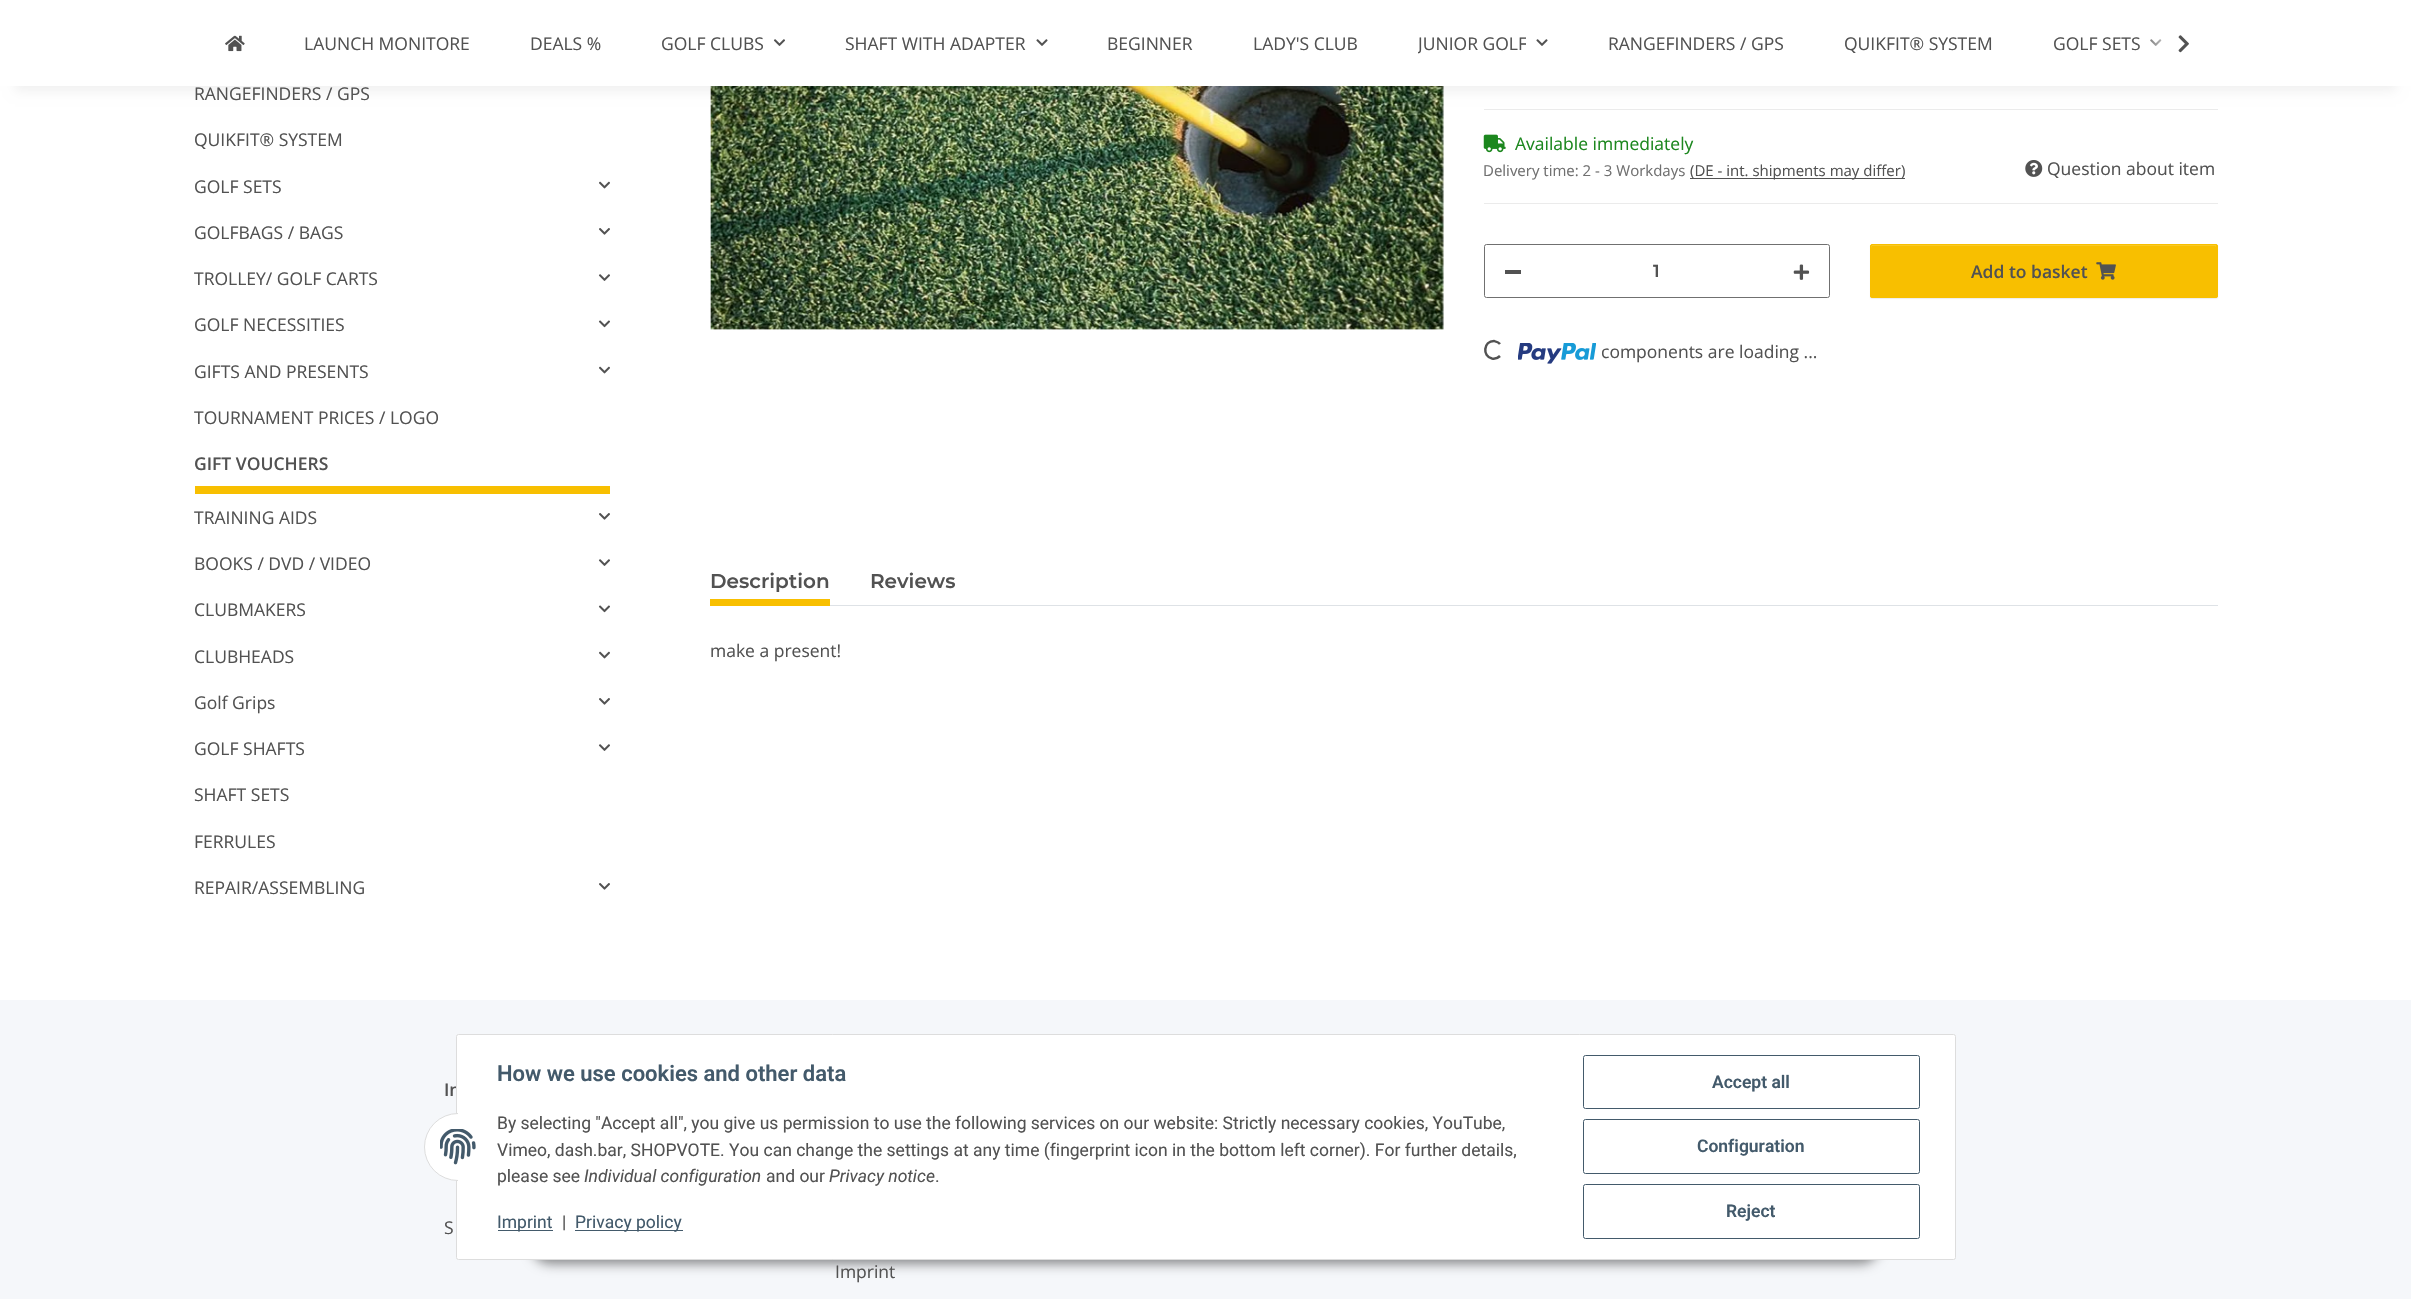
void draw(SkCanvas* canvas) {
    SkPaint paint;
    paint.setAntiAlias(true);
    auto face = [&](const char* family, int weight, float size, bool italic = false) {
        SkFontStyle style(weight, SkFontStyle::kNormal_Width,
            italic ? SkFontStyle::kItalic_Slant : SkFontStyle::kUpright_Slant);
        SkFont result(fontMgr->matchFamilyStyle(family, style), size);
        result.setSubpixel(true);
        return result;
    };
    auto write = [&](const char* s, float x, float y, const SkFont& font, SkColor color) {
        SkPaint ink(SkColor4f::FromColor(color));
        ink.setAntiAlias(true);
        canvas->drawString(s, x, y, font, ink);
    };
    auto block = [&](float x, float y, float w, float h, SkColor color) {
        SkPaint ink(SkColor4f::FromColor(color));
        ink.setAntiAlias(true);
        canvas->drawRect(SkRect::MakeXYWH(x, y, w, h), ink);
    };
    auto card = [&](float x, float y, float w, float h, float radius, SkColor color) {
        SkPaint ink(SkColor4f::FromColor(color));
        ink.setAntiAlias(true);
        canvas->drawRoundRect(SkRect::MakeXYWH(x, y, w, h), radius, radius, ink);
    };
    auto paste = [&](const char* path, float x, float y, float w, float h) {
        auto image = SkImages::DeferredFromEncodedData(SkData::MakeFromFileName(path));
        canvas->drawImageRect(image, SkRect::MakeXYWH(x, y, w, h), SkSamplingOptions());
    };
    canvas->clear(SkColorSetRGB(245, 247, 250));
    block(0, 86, 2411, 914, SK_ColorWHITE);
    paste("pic9.png", 710, 86, 734, 244);
    paint.setColor(SkColorSetARGB(15, 0, 0, 0));
    paint.setMaskFilter(SkMaskFilter::MakeBlur(kNormal_SkBlurStyle, 5.5f));
    canvas->drawRect(SkRect::MakeXYWH(15, 35, 2381, 56), paint);
    paint.setMaskFilter(nullptr);
    block(0, 0, 2411, 86, SK_ColorWHITE);
    paste("pic1.png", 225, 35, 20, 17);
    auto kFont1 = face("Open Sans", 400, 17.5f);
    write("LAUNCH MONITORE", 304, 50, kFont1, SkColorSetRGB(82, 82, 82));
    write("DEALS %", 530, 50, kFont1, SkColorSetRGB(82, 82, 82));
    write("GOLF CLUBS", 661, 50, kFont1, SkColorSetRGB(82, 82, 82));
    paste("pic2.png", 773, 39, 12, 7);
    write("SHAFT WITH ADAPTER", 845, 50, kFont1, SkColorSetRGB(82, 82, 82));
    paste("pic3.png", 1036, 39, 12, 7);
    write("BEGINNER", 1107, 50, kFont1, SkColorSetRGB(82, 82, 82));
    write("LADY'S CLUB", 1253, 50, kFont1, SkColorSetRGB(82, 82, 82));
    canvas->save();
    canvas->clipRect(SkRect::MakeXYWH(1418, 30, 108, 26));
    write("JUNIOR GOLF", 1418, 50, kFont1, SkColorSetRGB(82, 82, 82));
    canvas->restore();
    paste("pic3.png", 1536, 39, 12, 7);
    write("RANGEFINDERS / GPS", 1608, 50, kFont1, SkColorSetRGB(82, 82, 82));
    write("QUIKFIT® SYSTEM", 1844, 50, kFont1, SkColorSetRGB(82, 82, 82));
    write("GOLF SETS", 2053, 50, kFont1, SkColorSetRGB(82, 82, 82));
    paste("pic4.png", 2150, 39, 12, 7);
    {
        const SkColor colors[] = {SkColorSetARGB(3, 255, 255, 255), SK_ColorWHITE};
        const float stops[] = {0, 0.7f};
        const SkPoint ends[] = {{2138, 44}, {2198, 44}};
        paint.setShader(SkGradientShader::MakeLinear(ends, colors, stops, 2, SkTileMode::kClamp));
        paint.setAlpha(255);
    }
    canvas->drawRect(SkRect::MakeXYWH(2138, 38, 24, 11), paint);
    paste("pic5.png", 2178, 35, 11, 18);
    write("RANGEFINDERS / GPS", 194, 100, kFont1, SkColorSetRGB(82, 82, 82));
    write("QUIKFIT® SYSTEM", 194, 146, kFont1, SkColorSetRGB(82, 82, 82));
    write("GOLF SETS", 194, 193, kFont1, SkColorSetRGB(82, 82, 82));
    paste("pic6.png", 599, 181, 11, 8);
    write("GOLFBAGS / BAGS", 194, 239, kFont1, SkColorSetRGB(82, 82, 82));
    paste("pic7.png", 599, 228, 11, 7);
    write("TROLLEY/ GOLF CARTS", 194, 285, kFont1, SkColorSetRGB(82, 82, 82));
    paste("pic2.png", 598, 274, 12, 7);
    write("GOLF NECESSITIES", 194, 331, kFont1, SkColorSetRGB(82, 82, 82));
    paste("pic8.png", 598, 320, 12, 8);
    write("GIFTS AND PRESENTS", 194, 378, kFont1, SkColorSetRGB(82, 82, 82));
    paste("pic6.png", 599, 366, 11, 8);
    write("TOURNAMENT PRICES / LOGO", 194, 424, kFont1, SkColorSetRGB(82, 82, 82));
    block(195, 486, 415, 8, SkColorSetRGB(248, 191, 0));
    auto kFont2 = face("Open Sans", 600, 17.5f);
    write("GIFT VOUCHERS", 194, 470, kFont2, SkColorSetRGB(82, 82, 82));
    write("TRAINING AIDS", 194, 524, kFont1, SkColorSetRGB(82, 82, 82));
    paste("pic7.png", 599, 513, 11, 7);
    write("BOOKS / DVD / VIDEO", 194, 570, kFont1, SkColorSetRGB(82, 82, 82));
    paste("pic2.png", 598, 559, 12, 7);
    write("CLUBMAKERS", 194, 616, kFont1, SkColorSetRGB(82, 82, 82));
    paste("pic8.png", 598, 605, 12, 8);
    write("CLUBHEADS", 194, 663, kFont1, SkColorSetRGB(82, 82, 82));
    paste("pic6.png", 599, 651, 11, 8);
    write("Golf Grips", 194, 709, kFont1, SkColorSetRGB(82, 82, 82));
    paste("pic7.png", 599, 698, 11, 7);
    write("GOLF SHAFTS", 194, 755, kFont1, SkColorSetRGB(82, 82, 82));
    paste("pic2.png", 598, 744, 12, 7);
    write("SHAFT SETS", 194, 801, kFont1, SkColorSetRGB(82, 82, 82));
    write("FERRULES", 194, 848, kFont1, SkColorSetRGB(82, 82, 82));
    write("REPAIR/ASSEMBLING", 194, 894, kFont1, SkColorSetRGB(82, 82, 82));
    paste("pic7.png", 599, 883, 11, 7);
    block(1484, 109, 734, 1, SkColorSetRGB(235, 235, 235));
    block(1484, 203, 734, 1, SkColorSetRGB(235, 235, 235));
    paste("pic10.png", 1483, 134, 23, 19);
    write("Available immediately", 1515, 150, kFont1, SkColorSetRGB(28, 135, 30));
    auto kFont3 = face("Open Sans", 400, 15);
    write("Delivery time: 2 - 3 Workdays", 1483, 176, kFont3, SkColorSetRGB(112, 112, 112));
    block(1690, 178, 215, 1, SkColorSetRGB(82, 82, 82));
    write("(DE - int. shipments may differ)", 1690, 176, kFont3, SkColorSetRGB(82, 82, 82));
    paste("pic11.png", 2025, 160, 18, 17);
    write("Question about item", 2047, 175, kFont1, SkColorSetRGB(82, 82, 82));
    paint.setStyle(SkPaint::kStroke_Style);
    paint.setStrokeWidth(1);
    paint.setShader(nullptr);
    paint.setColor(SkColorSetRGB(112, 112, 112));
    canvas->drawRoundRect(SkRect::MakeXYWH(1484.5f, 244.5f, 345, 53), 2, 2, paint);
    block(1505, 270, 16, 4, SkColorSetRGB(82, 82, 82));
    auto kFont4 = face("Montserrat", 600, 17.5f);
    write("1", 1653, 277, kFont4, SkColorSetRGB(82, 82, 82));
    paste("pic12.png", 1793, 264, 17, 16);
    paint.setStyle(SkPaint::kFill_Style);
    paint.setColor(SkColorSetARGB(18, 0, 0, 0));
    paint.setMaskFilter(SkMaskFilter::MakeBlur(kNormal_SkBlurStyle, 0.5f));
    canvas->drawRoundRect(SkRect::MakeXYWH(1870, 245, 348, 54), 2.5f, 2.5f, paint);
    paint.setMaskFilter(nullptr);
    card(1870, 244, 348, 54, 2.5f, SkColorSetRGB(248, 191, 0));
    paint.setColor(SkColorSetRGB(249, 201, 38));
    canvas->drawPath(SkPathBuilder().moveTo(1872, 246).lineTo(2215, 246).lineTo(2216, 247).lineTo(2216, 248).lineTo(2216, 245).lineTo(1872, 245).cubicTo(1871, 245, 1871, 247, 1871, 248).close().detach(), paint);
    paint.setStyle(SkPaint::kStroke_Style);
    paint.setColor(SkColorSetRGB(248, 191, 0));
    canvas->drawRoundRect(SkRect::MakeXYWH(1870.5f, 244.5f, 347, 53), 2, 2, paint);
    write("Add to basket", 1971, 278, kFont2, SkColorSetRGB(82, 82, 82));
    paste("pic13.png", 2096, 262, 20, 18);
    paint.setStrokeWidth(2.5f);
    paint.setColor(SkColorSetRGB(82, 82, 82));
    canvas->drawPath(SkPathBuilder().moveTo(1500, 356).cubicTo(1498, 358, 1495, 359, 1492, 358.5f).cubicTo(1482, 356.5f, 1483.5f, 341, 1494, 341).cubicTo(1496, 341.5f, 1498.5f, 342, 1500, 344).detach(), paint);
    paste("pic14.png", 1518, 343, 78, 21);
    write("components are loading ...", 1601, 358, kFont1, SkColorSetRGB(82, 82, 82));
    block(830, 605, 1388, 1, SkColorSetRGB(222, 226, 230));
    auto kFont5 = face("Montserrat", 600, 20);
    write("Description", 710, 588, kFont5, SkColorSetRGB(82, 82, 82));
    block(710, 599, 120, 7, SkColorSetRGB(248, 191, 0));
    write("Reviews", 870, 588, kFont5, SkColorSetRGB(82, 82, 82));
    write("make a present!", 710, 657, kFont1, SkColorSetRGB(82, 82, 82));
    paint.setStyle(SkPaint::kFill_Style);
    paint.setColor(SkColorSetARGB(115, 0, 0, 0));
    paint.setMaskFilter(SkMaskFilter::MakeBlur(kNormal_SkBlurStyle, 6));
    canvas->drawRoundRect(SkRect::MakeXYWH(531, 1224, 1349, 40), 20, 20, paint);
    paint.setMaskFilter(nullptr);
    write("In", 444, 1096, kFont2, SkColorSetRGB(82, 82, 82));
    paint.setColor(SK_ColorWHITE);
    canvas->drawRoundRect(SkRect::MakeXYWH(456.5f, 1034.5f, 1499, 225), 2, 2, paint);
    paint.setStyle(SkPaint::kStroke_Style);
    paint.setStrokeWidth(1);
    paint.setColor(SkColorSetRGB(221, 221, 221));
    canvas->drawRoundRect(SkRect::MakeXYWH(456.5f, 1034.5f, 1499, 225), 2, 2, paint);
    paint.setStyle(SkPaint::kFill_Style);
    paint.setColor(SK_ColorWHITE);
    canvas->drawRoundRect(SkRect::MakeXYWH(424.5f, 1113.5f, 68, 67), 33.5f, 33.5f, paint);
    paint.setStyle(SkPaint::kStroke_Style);
    paint.setColor(SkColorSetRGB(221, 221, 221));
    canvas->drawRoundRect(SkRect::MakeXYWH(424.5f, 1113.5f, 68, 67), 33.5f, 33.5f, paint);
    block(458, 1113, 35, 68, SK_ColorWHITE);
    paste("pic15.png", 440, 1129, 36, 36);
    auto kFont6 = face("Roboto", 600, 22);
    write("How we use cookies and other data", 497, 1081, kFont6, SkColorSetRGB(67, 90, 107));
    auto kFont7 = face("Roboto", 400, 17.5f);
    write("By selecting \"Accept all\", you give us permission to use the following services on our website: Strictly necessary cookies, YouTube,", 497, 1129, kFont7, SkColorSetRGB(82, 82, 82));
    write("Vimeo, dash.bar, SHOPVOTE. You can change the settings at any time (fingerprint icon in the bottom left corner). For further details,", 497, 1156, kFont7, SkColorSetRGB(82, 82, 82));
    write("please see", 497, 1182, kFont7, SkColorSetRGB(82, 82, 82));
    auto kFont8 = face("Roboto", 400, 17.5f, true);
    write("Individual configuration", 584, 1182, kFont8, SkColorSetRGB(82, 82, 82));
    write("and our", 766, 1182, kFont7, SkColorSetRGB(82, 82, 82));
    write("Privacy notice", 829, 1182, kFont8, SkColorSetRGB(82, 82, 82));
    write(".", 935, 1182, kFont7, SkColorSetRGB(82, 82, 82));
    block(498, 1230, 55, 1, SkColorSetRGB(67, 90, 107));
    write("Imprint", 497, 1228, kFont7, SkColorSetRGB(67, 90, 107));
    write("|", 562, 1228, kFont7, SkColorSetRGB(82, 82, 82));
    block(575, 1230, 108, 1, SkColorSetRGB(67, 90, 107));
    write("Privacy policy", 575, 1228, kFont7, SkColorSetRGB(67, 90, 107));
    paint.setColor(SkColorSetRGB(67, 90, 107));
    canvas->drawRoundRect(SkRect::MakeXYWH(1583.5f, 1055.5f, 336, 53), 2, 2, paint);
    auto kFont9 = face("Roboto", 600, 17.5f);
    write("Accept all", 1712, 1088, kFont9, SkColorSetRGB(67, 90, 107));
    canvas->drawRoundRect(SkRect::MakeXYWH(1583.5f, 1119.5f, 336, 54), 2, 2, paint);
    write("Configuration", 1697, 1152, kFont9, SkColorSetRGB(67, 90, 107));
    canvas->drawRoundRect(SkRect::MakeXYWH(1583.5f, 1184.5f, 336, 54), 2, 2, paint);
    write("Reject", 1726, 1217, kFont9, SkColorSetRGB(67, 90, 107));
    write("S", 444, 1234, kFont1, SkColorSetRGB(82, 82, 82));
    write("Imprint", 835, 1278, kFont1, SkColorSetRGB(82, 82, 82));
}
